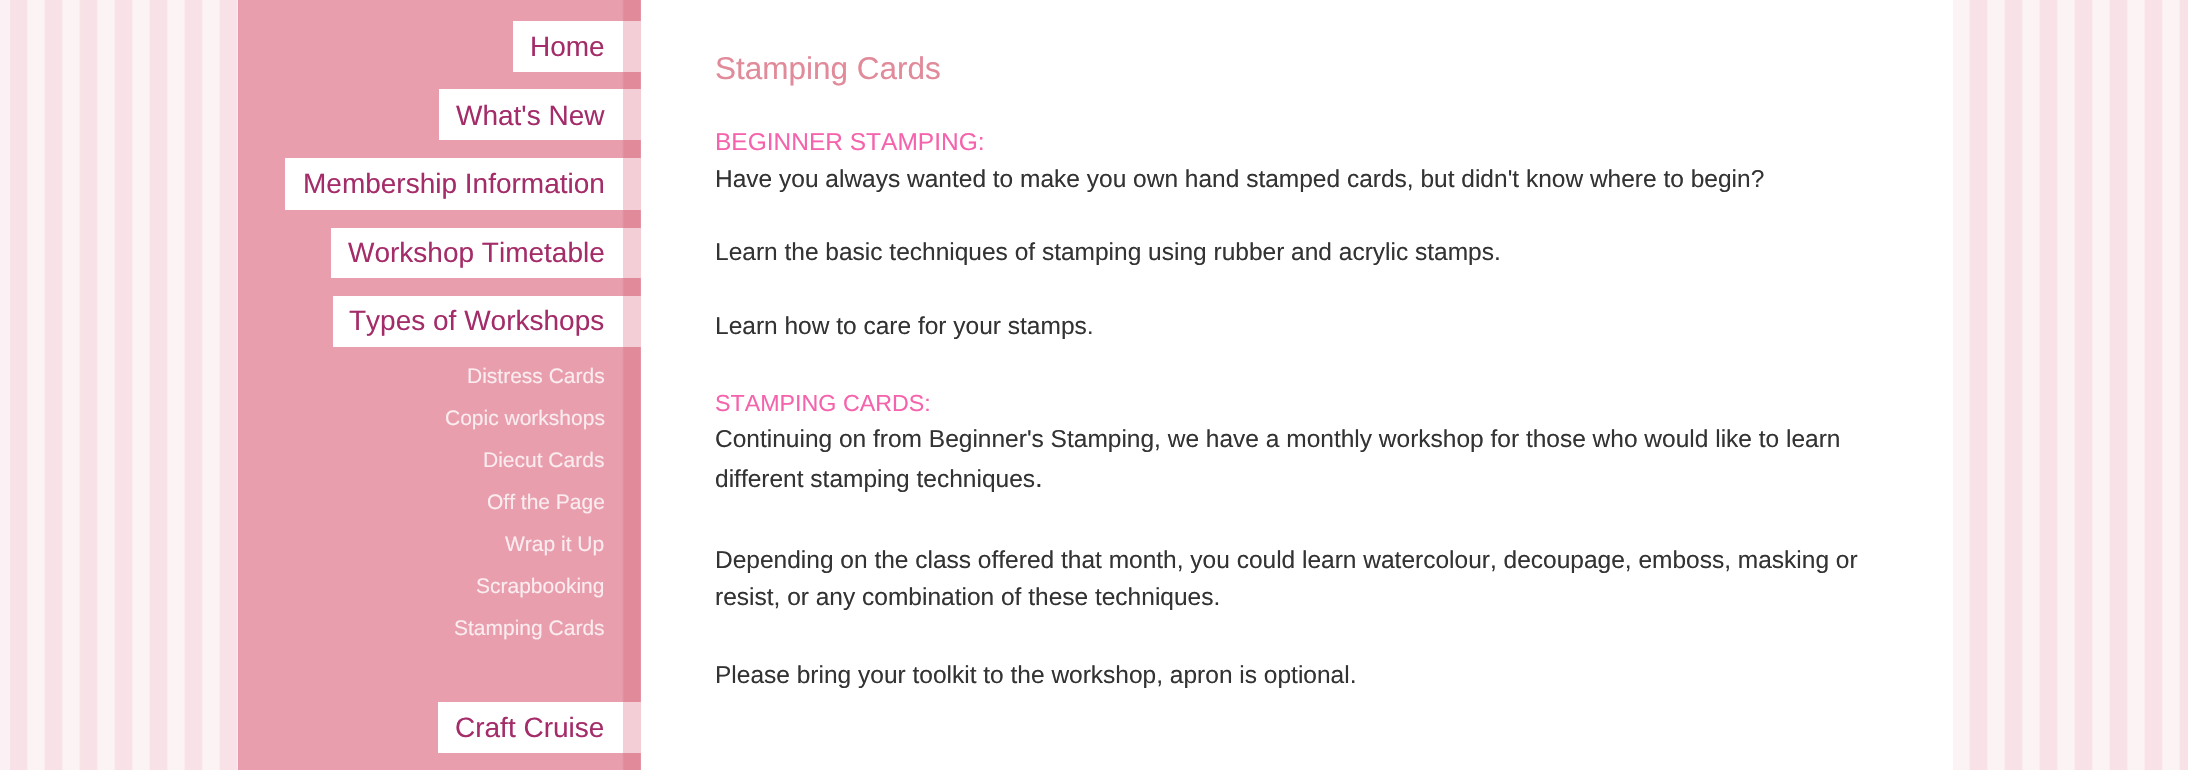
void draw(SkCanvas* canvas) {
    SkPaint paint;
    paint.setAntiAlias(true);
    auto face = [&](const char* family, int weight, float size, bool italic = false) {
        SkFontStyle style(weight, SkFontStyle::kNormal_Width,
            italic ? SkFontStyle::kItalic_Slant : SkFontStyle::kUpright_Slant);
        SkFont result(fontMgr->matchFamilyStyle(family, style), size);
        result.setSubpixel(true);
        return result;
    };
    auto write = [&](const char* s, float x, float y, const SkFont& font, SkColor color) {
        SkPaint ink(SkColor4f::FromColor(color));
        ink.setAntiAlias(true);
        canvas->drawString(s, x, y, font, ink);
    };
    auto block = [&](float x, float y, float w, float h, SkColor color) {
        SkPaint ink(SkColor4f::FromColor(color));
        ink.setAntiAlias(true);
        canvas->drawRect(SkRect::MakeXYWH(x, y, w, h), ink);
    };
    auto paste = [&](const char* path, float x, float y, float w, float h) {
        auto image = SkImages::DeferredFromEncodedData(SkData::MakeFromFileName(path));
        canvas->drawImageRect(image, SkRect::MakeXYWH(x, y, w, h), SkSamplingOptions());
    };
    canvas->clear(SkColorSetRGB(251, 240, 243));
    paste("pic1.png", 10, 0, 2178, 770);
    paste("pic2.png", 238, 0, 403, 770);
    block(513, 21, 110, 51, SK_ColorWHITE);
    block(623, 21, 18, 51, SkColorSetRGB(243, 206, 214));
    auto kFont1 = face("Liberation Sans", 400, 28);
    write("Home", 530, 56, kFont1, SkColorSetRGB(163, 44, 105));
    block(439, 89, 184, 51, SK_ColorWHITE);
    block(623, 89, 18, 51, SkColorSetRGB(243, 206, 214));
    write("What's New", 456, 125, kFont1, SkColorSetRGB(163, 44, 105));
    block(285, 158, 338, 52, SK_ColorWHITE);
    block(623, 158, 18, 52, SkColorSetRGB(243, 206, 214));
    write("Membership Information", 303, 193, kFont1, SkColorSetRGB(163, 44, 105));
    block(331, 228, 292, 50, SK_ColorWHITE);
    block(623, 228, 18, 50, SkColorSetRGB(243, 206, 214));
    write("Workshop Timetable", 348, 262, kFont1, SkColorSetRGB(163, 44, 105));
    block(333, 296, 290, 51, SK_ColorWHITE);
    block(623, 296, 18, 51, SkColorSetRGB(243, 206, 214));
    write("Types of Workshops", 349, 330, kFont1, SkColorSetRGB(163, 44, 105));
    auto kFont2 = face("Liberation Sans", 400, 21);
    write("Distress Cards", 467, 383, kFont2, SkColorSetRGB(250, 236, 239));
    write("Copic workshops", 445, 425, kFont2, SkColorSetRGB(250, 236, 239));
    write("Diecut Cards", 483, 467, kFont2, SkColorSetRGB(250, 236, 239));
    write("Off the Page", 487, 509, kFont2, SkColorSetRGB(250, 236, 239));
    write("Wrap it Up", 505, 551, kFont2, SkColorSetRGB(250, 236, 239));
    write("Scrapbooking", 476, 593, kFont2, SkColorSetRGB(250, 236, 239));
    write("Stamping Cards", 454, 635, kFont2, SkColorSetRGB(250, 236, 239));
    block(438, 702, 185, 51, SK_ColorWHITE);
    block(623, 702, 18, 51, SkColorSetRGB(243, 206, 214));
    write("Craft Cruise", 455, 737, kFont1, SkColorSetRGB(163, 44, 105));
    block(641, 0, 1312, 770, SK_ColorWHITE);
    auto kFont3 = face("Liberation Sans", 400, 31.5f);
    write("Stamping Cards", 715, 79, kFont3, SkColorSetRGB(225, 138, 154));
    auto kFont4 = face("Liberation Sans", 400, 24.5f);
    write("BEGINNER STAMPING:", 715, 150, kFont4, SkColorSetRGB(245, 99, 172));
    write("Have you always wanted to make you own hand stamped cards, but didn't know where to begin?", 715, 187, kFont4, SkColorSetRGB(51, 51, 51));
    write("Learn the basic techniques of stamping using rubber and acrylic stamps.", 715, 260, kFont4, SkColorSetRGB(51, 51, 51));
    write("Learn how to care for your stamps", 715, 334, kFont4, SkColorSetRGB(51, 51, 51));
    auto kFont5 = face("Liberation Sans", 400, 23.25f);
    write(".", 1087, 334, kFont5, SkColorSetRGB(51, 51, 51));
    write("STAMPING CARDS:", 715, 411, kFont5, SkColorSetRGB(245, 99, 172));
    write("Continuing on from Beginner's Stamping, we have a monthly workshop for those who would like to learn", 715, 447, kFont4, SkColorSetRGB(51, 51, 51));
    write("different stamping techniques", 715, 487, kFont4, SkColorSetRGB(51, 51, 51));
    write(".", 1035, 487, kFont1, SkColorSetRGB(51, 51, 51));
    write("Depending on the class offered that month, you could learn watercolour, decoupage, emboss, masking or", 715, 568, kFont4, SkColorSetRGB(51, 51, 51));
    write("resist, or any combination of these techniques.", 715, 605, kFont4, SkColorSetRGB(51, 51, 51));
    write("Please bring your toolkit to the workshop, apron is optional.", 715, 683, kFont4, SkColorSetRGB(51, 51, 51));
}
